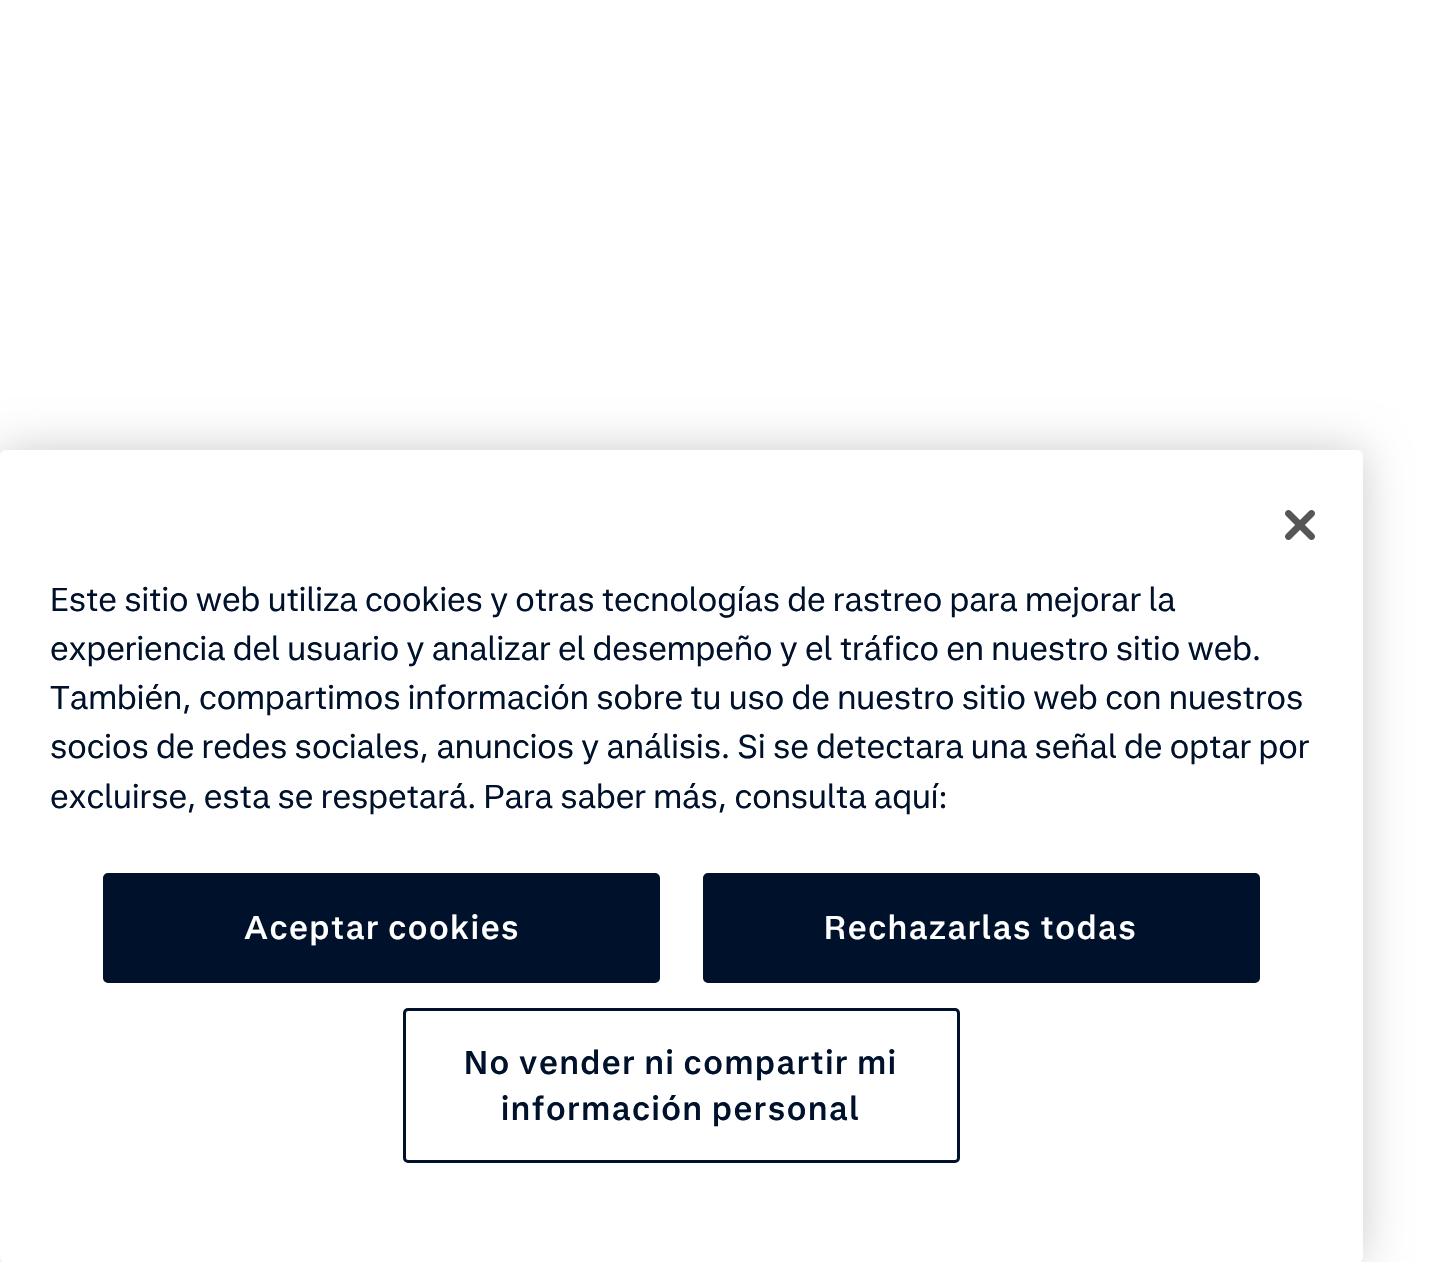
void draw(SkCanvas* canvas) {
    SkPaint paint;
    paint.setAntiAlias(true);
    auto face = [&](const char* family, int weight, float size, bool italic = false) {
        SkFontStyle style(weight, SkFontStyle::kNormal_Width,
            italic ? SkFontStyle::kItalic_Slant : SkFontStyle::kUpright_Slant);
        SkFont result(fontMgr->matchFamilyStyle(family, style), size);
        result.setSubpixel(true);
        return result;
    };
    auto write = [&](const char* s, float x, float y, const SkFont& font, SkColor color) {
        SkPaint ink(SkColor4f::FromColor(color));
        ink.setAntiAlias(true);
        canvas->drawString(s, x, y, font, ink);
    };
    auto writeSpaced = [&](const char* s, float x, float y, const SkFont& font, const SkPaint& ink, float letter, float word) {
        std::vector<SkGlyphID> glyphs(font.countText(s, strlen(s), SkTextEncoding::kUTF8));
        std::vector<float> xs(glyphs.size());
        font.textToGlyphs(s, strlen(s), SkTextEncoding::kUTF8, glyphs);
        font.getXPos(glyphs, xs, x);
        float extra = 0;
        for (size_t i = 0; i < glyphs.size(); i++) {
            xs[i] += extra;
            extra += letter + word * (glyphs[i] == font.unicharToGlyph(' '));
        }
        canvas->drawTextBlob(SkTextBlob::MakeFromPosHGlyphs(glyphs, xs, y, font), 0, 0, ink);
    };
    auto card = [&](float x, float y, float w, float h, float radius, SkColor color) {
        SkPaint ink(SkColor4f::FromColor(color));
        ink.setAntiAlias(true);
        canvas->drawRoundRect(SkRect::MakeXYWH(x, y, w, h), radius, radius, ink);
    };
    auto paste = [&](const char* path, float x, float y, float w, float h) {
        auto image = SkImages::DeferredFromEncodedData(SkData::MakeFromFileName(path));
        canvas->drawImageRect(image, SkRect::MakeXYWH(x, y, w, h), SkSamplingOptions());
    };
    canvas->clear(SK_ColorWHITE);
    paint.setColor(SkColorSetARGB(51, 0, 0, 0));
    paint.setMaskFilter(SkMaskFilter::MakeBlur(kNormal_SkBlurStyle, 22.5f));
    canvas->drawRoundRect(SkRect::MakeXYWH(0, 450, 1363, 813), 6, 6, paint);
    paint.setMaskFilter(nullptr);
    card(0, 450, 1363, 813, 6, SK_ColorWHITE);
    paste("pic1.png", 1285, 510, 30, 30);
    auto kFont1 = face("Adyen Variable", 400, 32.8f);
    write("Este sitio web utiliza cookies y otras tecnologías de rastreo para mejorar la", 50, 611, kFont1, SkColorSetRGB(0, 17, 44));
    write("experiencia del usuario y analizar el desempeño y el tráfico en nuestro sitio web.", 50, 660, kFont1, SkColorSetRGB(0, 17, 44));
    write("También, compartimos información sobre tu uso de nuestro sitio web con nuestros", 50, 709, kFont1, SkColorSetRGB(0, 17, 44));
    write("socios de redes sociales, anuncios y análisis. Si se detectara una señal de optar por", 50, 758, kFont1, SkColorSetRGB(0, 17, 44));
    write("excluirse, esta se respetará. Para saber más, consulta aquí:", 50, 808, kFont1, SkColorSetRGB(0, 17, 44));
    paint.setColor(SkColorSetRGB(0, 17, 44));
    canvas->drawRoundRect(SkRect::MakeXYWH(104.5f, 874.5f, 554, 107), 3.5f, 3.5f, paint);
    paint.setStyle(SkPaint::kStroke_Style);
    paint.setStrokeWidth(3);
    canvas->drawRoundRect(SkRect::MakeXYWH(104.5f, 874.5f, 554, 107), 3.5f, 3.5f, paint);
    auto kFont2 = face("Adyen Variable", 600, 32.8f);
    paint.setStyle(SkPaint::kFill_Style);
    paint.setColor(SK_ColorWHITE);
    writeSpaced("Aceptar cookies", 244, 939, kFont2, paint, 1.6f, 0);
    paint.setColor(SkColorSetRGB(0, 17, 44));
    canvas->drawRoundRect(SkRect::MakeXYWH(704.5f, 874.5f, 554, 107), 3.5f, 3.5f, paint);
    paint.setStyle(SkPaint::kStroke_Style);
    canvas->drawRoundRect(SkRect::MakeXYWH(704.5f, 874.5f, 554, 107), 3.5f, 3.5f, paint);
    paint.setStyle(SkPaint::kFill_Style);
    paint.setColor(SK_ColorWHITE);
    writeSpaced("Rechazarlas todas", 824, 939, kFont2, paint, 1.6f, 0);
    paint.setStyle(SkPaint::kStroke_Style);
    paint.setColor(SkColorSetRGB(0, 17, 44));
    canvas->drawRoundRect(SkRect::MakeXYWH(404.5f, 1009.5f, 554, 152), 3.5f, 3.5f, paint);
    paint.setStyle(SkPaint::kFill_Style);
    writeSpaced("No vender ni compartir mi", 464, 1074, kFont2, paint, 1.6f, 0);
    writeSpaced("información personal", 501, 1120, kFont2, paint, 1.6f, 0);
}
